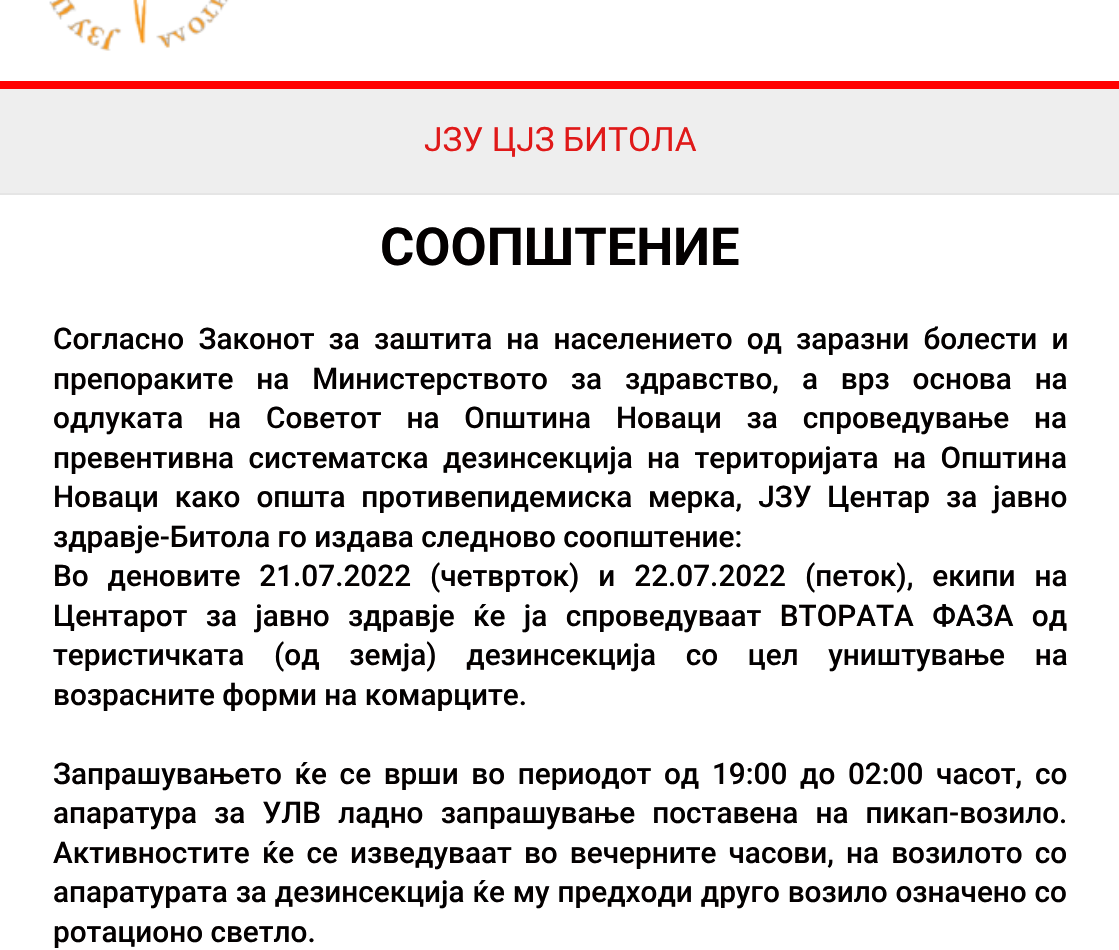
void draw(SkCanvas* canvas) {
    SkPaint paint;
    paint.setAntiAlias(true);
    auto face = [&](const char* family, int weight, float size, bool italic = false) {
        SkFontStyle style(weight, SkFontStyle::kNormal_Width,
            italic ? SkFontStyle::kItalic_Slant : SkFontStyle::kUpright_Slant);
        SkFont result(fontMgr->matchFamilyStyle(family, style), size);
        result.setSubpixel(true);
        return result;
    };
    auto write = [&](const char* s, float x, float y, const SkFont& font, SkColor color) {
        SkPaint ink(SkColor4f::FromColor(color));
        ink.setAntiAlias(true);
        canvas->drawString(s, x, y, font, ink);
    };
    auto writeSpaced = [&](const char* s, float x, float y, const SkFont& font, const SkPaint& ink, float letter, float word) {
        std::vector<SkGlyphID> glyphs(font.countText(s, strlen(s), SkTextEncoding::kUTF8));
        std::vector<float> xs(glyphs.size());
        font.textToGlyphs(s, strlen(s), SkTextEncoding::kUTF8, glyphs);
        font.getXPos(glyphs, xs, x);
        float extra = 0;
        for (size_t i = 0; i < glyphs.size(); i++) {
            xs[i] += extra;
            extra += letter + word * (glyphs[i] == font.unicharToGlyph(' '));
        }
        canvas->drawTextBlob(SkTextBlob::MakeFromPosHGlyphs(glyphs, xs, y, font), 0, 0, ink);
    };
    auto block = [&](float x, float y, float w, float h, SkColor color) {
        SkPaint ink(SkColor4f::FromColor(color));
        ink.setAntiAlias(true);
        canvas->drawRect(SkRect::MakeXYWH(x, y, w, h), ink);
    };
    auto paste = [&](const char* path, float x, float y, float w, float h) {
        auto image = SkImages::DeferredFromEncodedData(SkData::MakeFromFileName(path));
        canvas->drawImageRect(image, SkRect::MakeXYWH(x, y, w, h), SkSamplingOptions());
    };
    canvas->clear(SK_ColorWHITE);
    block(0, 81, 1119, 8, SkColorSetRGB(255, 0, 0));
    paste("pic1.png", 49, 0, 180, 51);
    block(0, 89, 1119, 104, SkColorSetRGB(238, 238, 238));
    block(0, 193, 1119, 2, SkColorSetRGB(229, 229, 229));
    auto kFont1 = face("Roboto", 400, 33.5f);
    write("ЈЗУ ЦЈЗ БИТОЛА", 424, 151, kFont1, SkColorSetRGB(224, 25, 25));
    auto kFont2 = face("Roboto", 700, 52.5f);
    write("СООПШТЕНИЕ", 380, 265, kFont2, SkColorSetRGB(3, 0, 0));
    auto kFont3 = face("Roboto", 500, 29.75f);
    paint.setColor(SkColorSetRGB(3, 0, 0));
    writeSpaced("Согласно Законот за заштита на населението од заразни болести и", 53, 349, kFont3, paint, 0, 6.75f);
    writeSpaced("препораките на Министерството за здравство, а врз основа на", 53, 389, kFont3, paint, 0, 15.5f);
    writeSpaced("одлуката на Советот на Општина Новаци за спроведување на", 53, 428, kFont3, paint, 0, 17.5f);
    writeSpaced("превентивна систематска дезинсекција на територијата на Општина", 53, 468, kFont3, paint, 0, 7);
    writeSpaced("Новаци како општа противепидемиска мерка, ЈЗУ Центар за јавно", 53, 507, kFont3, paint, 0, 8.5f);
    write("здравје-Битола го издава следново соопштение:", 53, 547, kFont3, SkColorSetRGB(3, 0, 0));
    writeSpaced("Во деновите 21.07.2022 (четврток) и 22.07.2022 (петок), екипи на", 53, 586, kFont3, paint, 0, 11.5f);
    writeSpaced("Центарот за јавно здравје ќе ја спроведуваат ВТОРАТА ФАЗА од", 53, 626, kFont3, paint, 0, 11);
    writeSpaced("теристичката (од земја) дезинсекција со цел уништување на", 53, 665, kFont3, paint, 0, 22.25f);
    write("возрасните форми на комарците.", 53, 705, kFont3, SkColorSetRGB(3, 0, 0));
    writeSpaced("Запрашувањето ќе се врши во периодот од 19:00 до 02:00 часот, со", 53, 784, kFont3, paint, 0, 5.25f);
    writeSpaced("апаратура за УЛВ ладно запрашување поставена на пикап-возило.", 53, 823, kFont3, paint, 0, 9.75f);
    writeSpaced("Активностите ќе се изведуваат во вечерните часови, на возилото со", 53, 863, kFont3, paint, 0, 4.75f);
    writeSpaced("апаратурата за дезинсекција ќе му предходи друго возило означено со", 53, 902, kFont3, paint, 0, 0.5f);
    write("ротационо светло.", 53, 942, kFont3, SkColorSetRGB(3, 0, 0));
}
